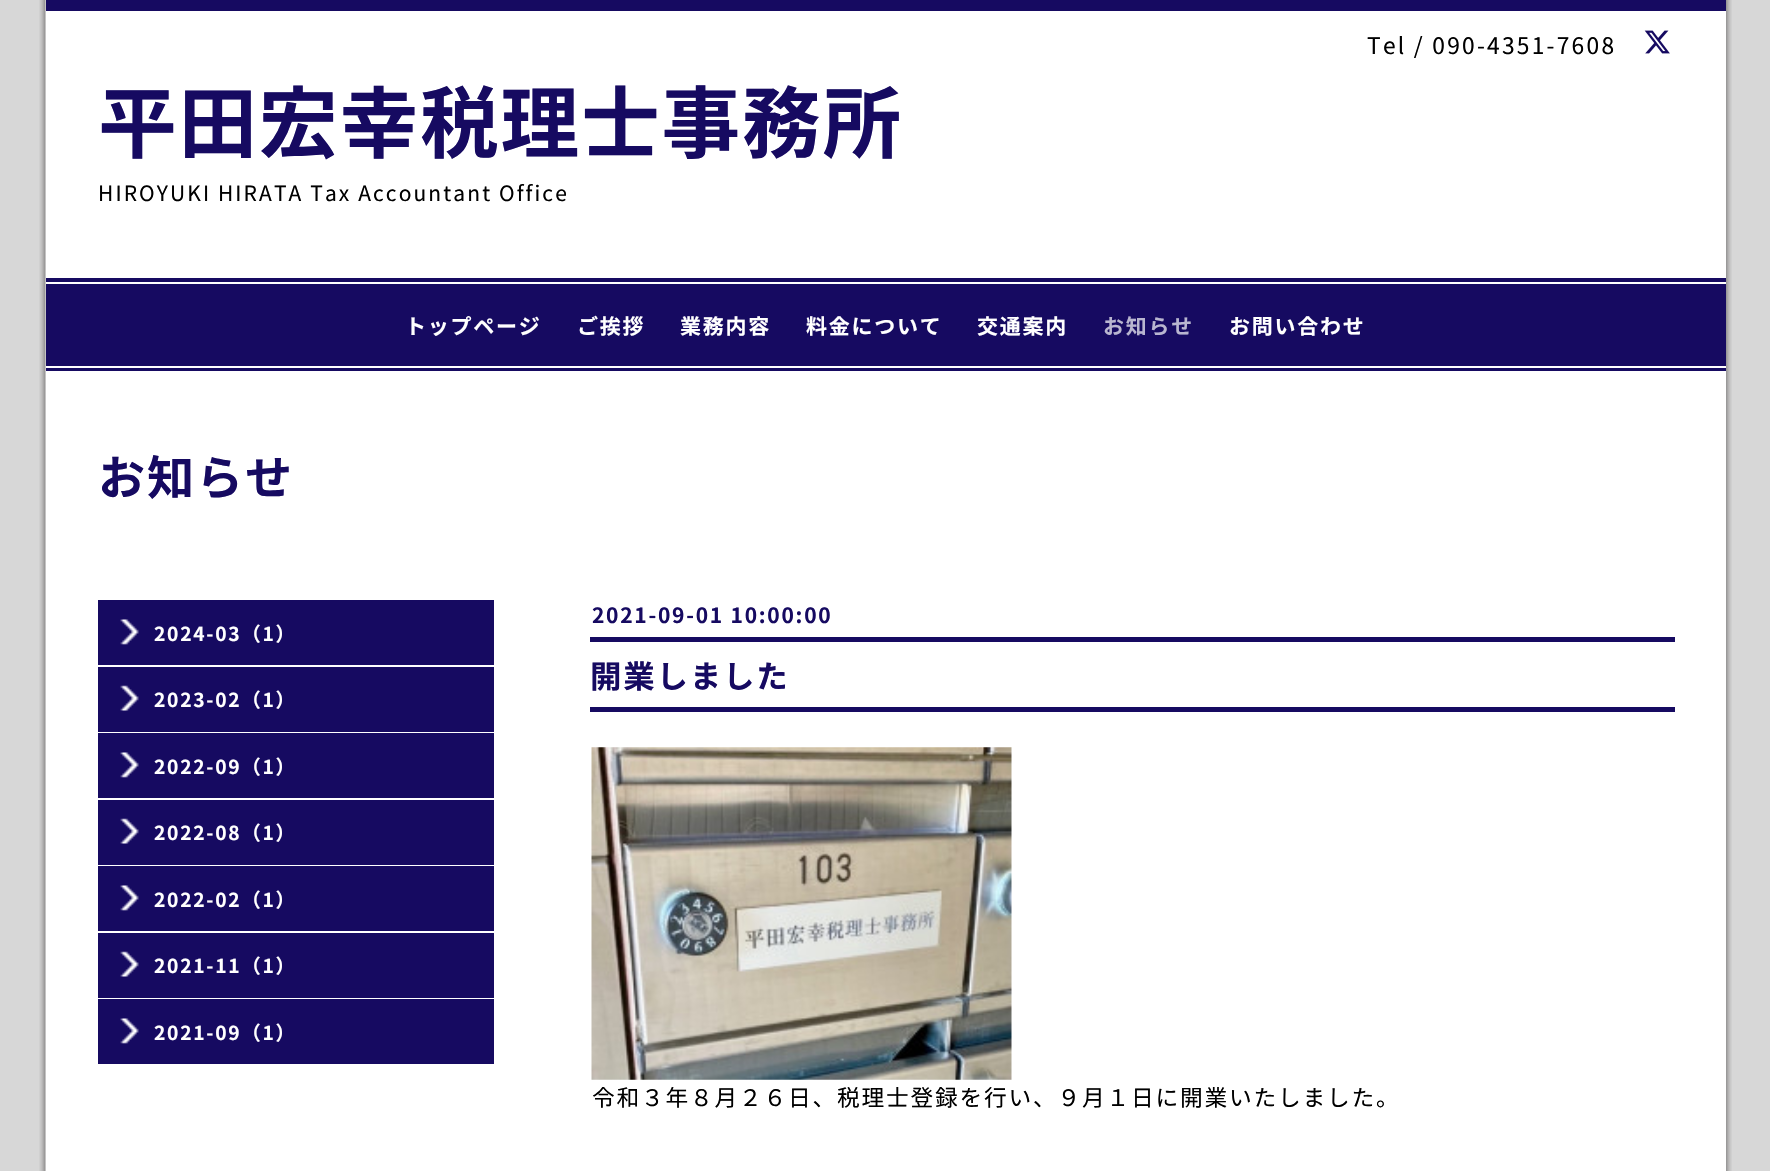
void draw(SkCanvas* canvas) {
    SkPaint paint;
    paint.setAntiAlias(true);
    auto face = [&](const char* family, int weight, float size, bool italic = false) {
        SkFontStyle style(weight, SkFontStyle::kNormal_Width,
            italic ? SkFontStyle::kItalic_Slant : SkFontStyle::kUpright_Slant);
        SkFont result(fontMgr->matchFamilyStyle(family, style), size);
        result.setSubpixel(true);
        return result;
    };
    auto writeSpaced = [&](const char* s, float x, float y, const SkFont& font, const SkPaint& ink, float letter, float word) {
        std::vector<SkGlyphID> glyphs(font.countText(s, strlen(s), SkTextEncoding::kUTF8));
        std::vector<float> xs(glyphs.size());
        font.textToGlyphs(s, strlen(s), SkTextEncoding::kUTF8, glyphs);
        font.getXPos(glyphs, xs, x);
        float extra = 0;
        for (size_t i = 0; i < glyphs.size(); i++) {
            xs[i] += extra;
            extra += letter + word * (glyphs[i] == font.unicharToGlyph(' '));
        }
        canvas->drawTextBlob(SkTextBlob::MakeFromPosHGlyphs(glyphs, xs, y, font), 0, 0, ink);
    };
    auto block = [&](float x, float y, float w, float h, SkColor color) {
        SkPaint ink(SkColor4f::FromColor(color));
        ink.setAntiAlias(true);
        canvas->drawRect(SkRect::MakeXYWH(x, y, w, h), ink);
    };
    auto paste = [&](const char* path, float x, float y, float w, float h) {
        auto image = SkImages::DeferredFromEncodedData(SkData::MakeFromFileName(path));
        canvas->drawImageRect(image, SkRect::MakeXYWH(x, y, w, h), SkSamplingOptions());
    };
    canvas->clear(SkColorSetRGB(215, 215, 215));
    paste("pic1.png", 39, 0, 1693, 1171);
    block(1725, 11, 1, 1160, SK_ColorWHITE);
    block(46, 0, 1680, 11, SkColorSetRGB(22, 10, 97));
    auto kFont1 = face("Noto Sans JP", 400, 22.75f);
    paint.setColor(SK_ColorBLACK);
    writeSpaced("Tel / 090-4351-7608", 1367, 54, kFont1, paint, 2.25f, 0);
    paste("pic2.png", 1644, 30, 26, 24);
    auto kFont2 = face("Noto Sans JP", 700, 78.75f);
    paint.setColor(SkColorSetRGB(22, 10, 97));
    writeSpaced("平田宏幸税理士事務所", 98, 152, kFont2, paint, 1.75f, 0);
    auto kFont3 = face("Noto Sans JP", 400, 21);
    paint.setColor(SK_ColorBLACK);
    writeSpaced("HIROYUKI HIRATA Tax Accountant Office", 98, 201, kFont3, paint, 2.1f, 0);
    block(46, 278, 1680, 93, SkColorSetRGB(22, 10, 97));
    block(46, 282, 1680, 2, SK_ColorWHITE);
    auto kFont4 = face("Noto Sans JP", 700, 21);
    paint.setColor(SK_ColorWHITE);
    writeSpaced("トップページ", 405, 334, kFont4, paint, 1.75f, 0);
    writeSpaced("ご挨拶", 577, 334, kFont4, paint, 1.75f, 0);
    writeSpaced("業務内容", 680, 334, kFont4, paint, 1.75f, 0);
    writeSpaced("料金について", 806, 334, kFont4, paint, 1.75f, 0);
    writeSpaced("交通案内", 977, 334, kFont4, paint, 1.75f, 0);
    paint.setColor(SkColorSetRGB(185, 182, 208));
    writeSpaced("お知らせ", 1103, 334, kFont4, paint, 1.75f, 0);
    paint.setColor(SK_ColorWHITE);
    writeSpaced("お問い合わせ", 1229, 334, kFont4, paint, 1.75f, 0);
    block(46, 366, 1680, 2, SK_ColorWHITE);
    auto kFont5 = face("Noto Sans JP", 700, 47.25f);
    paint.setColor(SkColorSetRGB(22, 10, 97));
    writeSpaced("お知らせ", 98, 495, kFont5, paint, 1.75f, 0);
    writeSpaced("2021-09-01 10:00:00", 592, 623, kFont4, paint, 1.75f, 0);
    block(590, 637, 1085, 5, SkColorSetRGB(22, 10, 97));
    auto kFont6 = face("Noto Sans JP", 700, 31.5f);
    writeSpaced("開業しました", 590, 688, kFont6, paint, 1.75f, 0);
    block(590, 707, 1085, 5, SkColorSetRGB(22, 10, 97));
    paste("pic3.png", 591, 747, 421, 333);
    paint.setColor(SK_ColorBLACK);
    writeSpaced("令和３年８月２６日、税理士登録を行い、９月１日に開業いたしました。", 592, 1106, kFont1, paint, 1.75f, 0);
    block(98, 600, 396, 65, SkColorSetRGB(22, 10, 97));
    paste("pic4.png", 120, 619, 19, 26);
    auto kFont7 = face("Noto Sans JP", 700, 19.25f);
    paint.setColor(SK_ColorWHITE);
    writeSpaced("2024-03（1）", 154, 641, kFont7, paint, 1.75f, 0);
    block(98, 667, 396, 65, SkColorSetRGB(22, 10, 97));
    paste("pic5.png", 120, 685, 19, 26);
    writeSpaced("2023-02（1）", 154, 707, kFont7, paint, 1.75f, 0);
    block(98, 733, 396, 65, SkColorSetRGB(22, 10, 97));
    paste("pic4.png", 120, 752, 19, 26);
    writeSpaced("2022-09（1）", 154, 774, kFont7, paint, 1.75f, 0);
    block(98, 800, 396, 65, SkColorSetRGB(22, 10, 97));
    paste("pic5.png", 120, 818, 19, 26);
    writeSpaced("2022-08（1）", 154, 840, kFont7, paint, 1.75f, 0);
    block(98, 866, 396, 65, SkColorSetRGB(22, 10, 97));
    paste("pic4.png", 120, 885, 19, 26);
    writeSpaced("2022-02（1）", 154, 907, kFont7, paint, 1.75f, 0);
    block(98, 933, 396, 65, SkColorSetRGB(22, 10, 97));
    paste("pic5.png", 120, 951, 19, 26);
    writeSpaced("2021-11（1）", 154, 973, kFont7, paint, 1.75f, 0);
    block(98, 999, 396, 65, SkColorSetRGB(22, 10, 97));
    paste("pic4.png", 120, 1018, 19, 26);
    writeSpaced("2021-09（1）", 154, 1040, kFont7, paint, 1.75f, 0);
}
